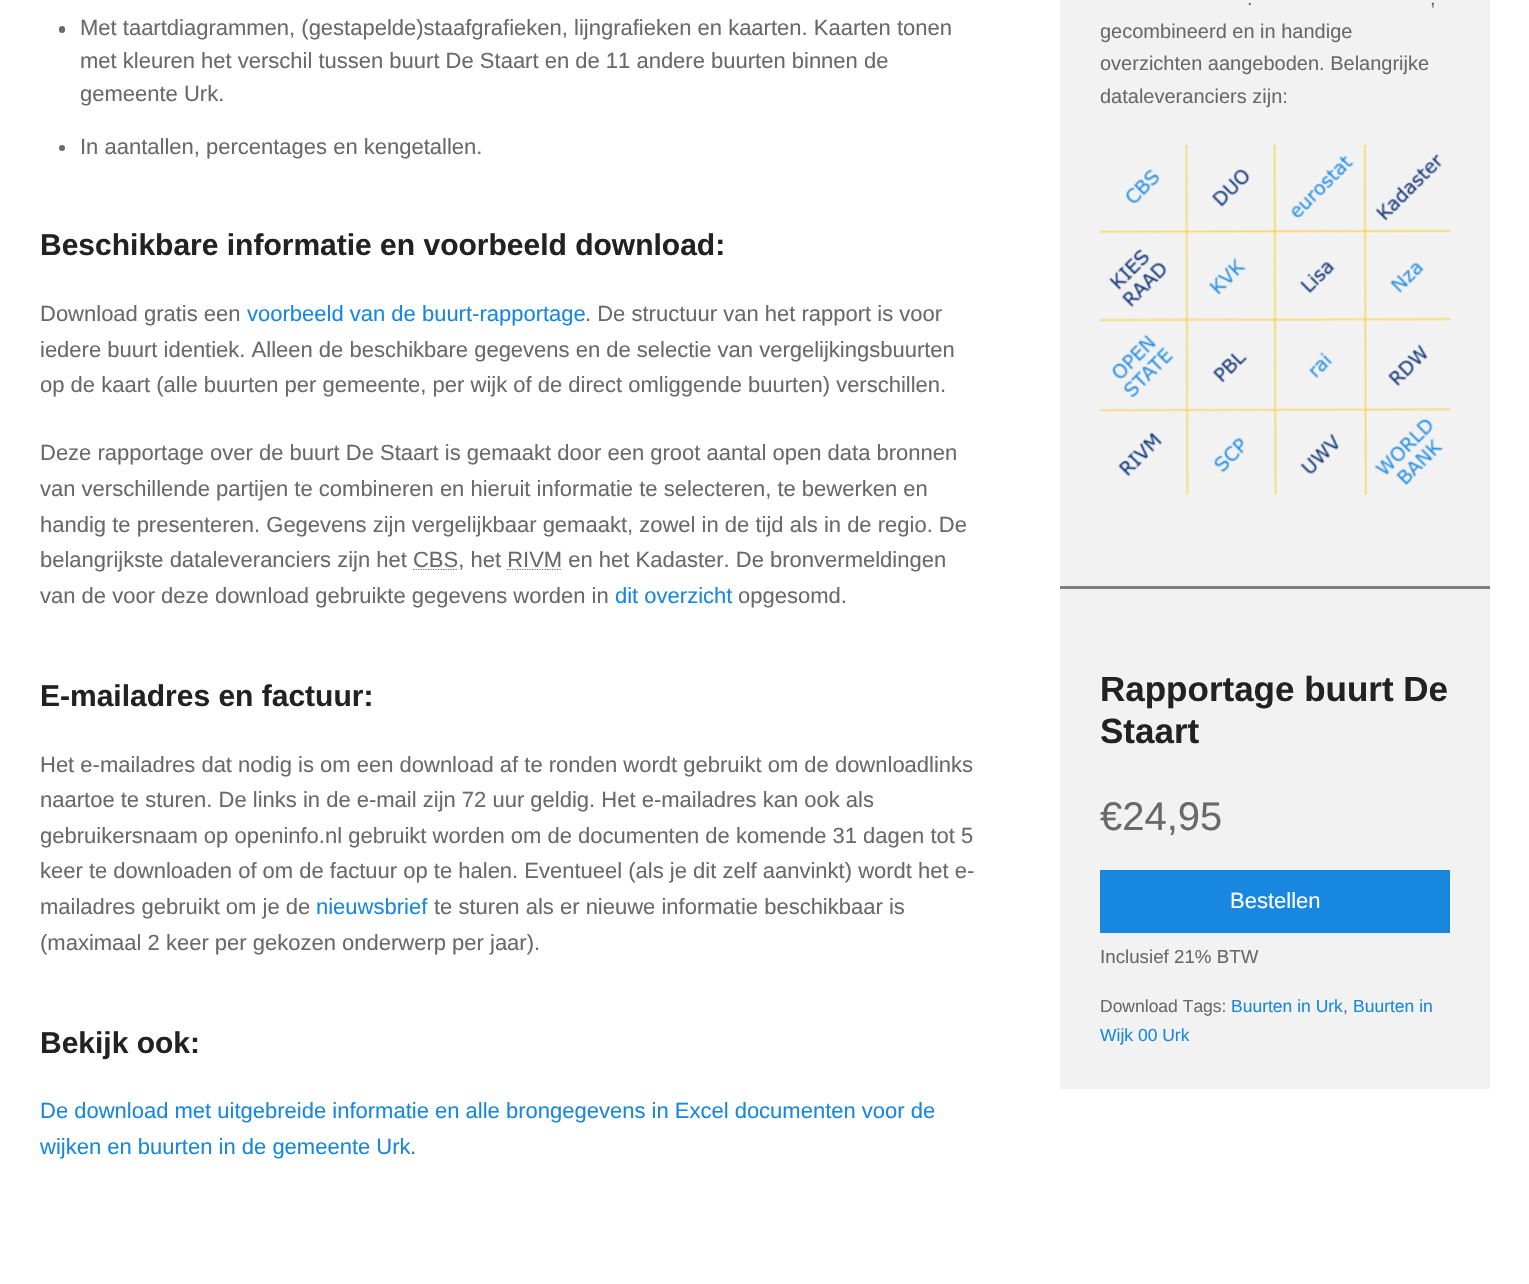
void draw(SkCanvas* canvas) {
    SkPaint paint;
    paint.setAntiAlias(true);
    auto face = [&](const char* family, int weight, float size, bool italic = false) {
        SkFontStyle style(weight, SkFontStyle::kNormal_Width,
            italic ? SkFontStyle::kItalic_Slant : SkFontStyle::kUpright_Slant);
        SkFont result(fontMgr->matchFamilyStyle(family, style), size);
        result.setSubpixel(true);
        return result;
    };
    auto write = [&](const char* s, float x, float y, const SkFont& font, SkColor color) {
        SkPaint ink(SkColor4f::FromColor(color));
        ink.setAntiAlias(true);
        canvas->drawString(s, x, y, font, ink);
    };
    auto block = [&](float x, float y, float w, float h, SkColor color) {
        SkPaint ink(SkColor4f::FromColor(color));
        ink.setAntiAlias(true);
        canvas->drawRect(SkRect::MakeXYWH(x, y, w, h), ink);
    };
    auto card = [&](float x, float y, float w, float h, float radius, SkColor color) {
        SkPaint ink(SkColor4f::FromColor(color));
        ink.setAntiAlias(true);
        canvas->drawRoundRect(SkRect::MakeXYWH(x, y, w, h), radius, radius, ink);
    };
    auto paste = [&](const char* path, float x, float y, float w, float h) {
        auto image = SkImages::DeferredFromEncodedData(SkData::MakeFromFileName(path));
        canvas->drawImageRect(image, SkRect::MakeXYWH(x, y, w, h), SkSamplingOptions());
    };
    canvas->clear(SK_ColorWHITE);
    card(59, 26, 6, 7, 3, SkColorSetRGB(105, 105, 105));
    auto kFont1 = face("Liberation Sans", 400, 22);
    write("Met taartdiagrammen, (gestapelde)staafgrafieken, lijngrafieken en kaarten. Kaarten tonen", 80, 35, kFont1, SkColorSetRGB(105, 105, 105));
    write("met kleuren het verschil tussen buurt De Staart en de 11 andere buurten binnen de", 80, 68, kFont1, SkColorSetRGB(105, 105, 105));
    write("gemeente Urk.", 80, 101, kFont1, SkColorSetRGB(105, 105, 105));
    paint.setColor(SkColorSetRGB(105, 105, 105));
    canvas->drawCircle(62, 148, 3, paint);
    write("In aantallen, percentages en kengetallen.", 80, 154, kFont1, SkColorSetRGB(105, 105, 105));
    auto kFont2 = face("Liberation Sans", 700, 30);
    write("Beschikbare informatie en voorbeeld download:", 40, 255, kFont2, SkColorSetRGB(34, 34, 34));
    write("Download gratis een", 40, 321, kFont1, SkColorSetRGB(105, 105, 105));
    write("voorbeeld van de buurt-rapportage", 247, 321, kFont1, SkColorSetRGB(23, 135, 224));
    write(". De structuur van het rapport is voor", 585, 321, kFont1, SkColorSetRGB(105, 105, 105));
    write("iedere buurt identiek. Alleen de beschikbare gegevens en de selectie van vergelijkingsbuurten", 40, 357, kFont1, SkColorSetRGB(105, 105, 105));
    write("op de kaart (alle buurten per gemeente, per wijk of de direct omliggende buurten) verschillen.", 40, 392, kFont1, SkColorSetRGB(105, 105, 105));
    write("Deze rapportage over de buurt De Staart is gemaakt door een groot aantal open data bronnen", 40, 460, kFont1, SkColorSetRGB(105, 105, 105));
    write("van verschillende partijen te combineren en hieruit informatie te selecteren, te bewerken en", 40, 496, kFont1, SkColorSetRGB(105, 105, 105));
    write("handig te presenteren. Gegevens zijn vergelijkbaar gemaakt, zowel in de tijd als in de regio. De", 40, 532, kFont1, SkColorSetRGB(105, 105, 105));
    write("belangrijkste dataleveranciers zijn het CBS, het RIVM en het Kadaster. De bronvermeldingen", 40, 567, kFont1, SkColorSetRGB(105, 105, 105));
    paint.setStyle(SkPaint::kStroke_Style);
    paint.setStrokeWidth(1.2f);
    paint.setPathEffect(SkDashPathEffect::Make({{1.25f, 1.25f}}, 0));
    canvas->drawPath(SkPathBuilder().moveTo(413, 569.5f).lineTo(458, 569.5f).detach(), paint);
    paint.setPathEffect(nullptr);
    paint.setPathEffect(SkDashPathEffect::Make({{1.25f, 1.25f}}, 0));
    canvas->drawPath(SkPathBuilder().moveTo(507, 569.5f).lineTo(562, 569.5f).detach(), paint);
    paint.setPathEffect(nullptr);
    write("van de voor deze download gebruikte gegevens worden in", 40, 603, kFont1, SkColorSetRGB(105, 105, 105));
    write("dit overzicht", 615, 603, kFont1, SkColorSetRGB(23, 135, 224));
    write("opgesomd.", 738, 603, kFont1, SkColorSetRGB(105, 105, 105));
    write("E-mailadres en factuur:", 40, 706, kFont2, SkColorSetRGB(34, 34, 34));
    write("Het e-mailadres dat nodig is om een download af te ronden wordt gebruikt om de downloadlinks", 40, 772, kFont1, SkColorSetRGB(105, 105, 105));
    write("naartoe te sturen. De links in de e-mail zijn 72 uur geldig. Het e-mailadres kan ook als", 40, 807, kFont1, SkColorSetRGB(105, 105, 105));
    write("gebruikersnaam op openinfo.nl gebruikt worden om de documenten de komende 31 dagen tot 5", 40, 843, kFont1, SkColorSetRGB(105, 105, 105));
    write("keer te downloaden of om de factuur op te halen. Eventueel (als je dit zelf aanvinkt) wordt het e-", 40, 878, kFont1, SkColorSetRGB(105, 105, 105));
    write("mailadres gebruikt om je de", 40, 914, kFont1, SkColorSetRGB(105, 105, 105));
    write("nieuwsbrief", 316, 914, kFont1, SkColorSetRGB(23, 135, 224));
    write("te sturen als er nieuwe informatie beschikbaar is", 434, 914, kFont1, SkColorSetRGB(105, 105, 105));
    write("(maximaal 2 keer per gekozen onderwerp per jaar).", 40, 950, kFont1, SkColorSetRGB(105, 105, 105));
    write("Bekijk ook:", 40, 1053, kFont2, SkColorSetRGB(34, 34, 34));
    write("De download met uitgebreide informatie en alle brongegevens in Excel documenten voor de", 40, 1118, kFont1, SkColorSetRGB(23, 135, 224));
    write("wijken en buurten in de gemeente Urk", 40, 1154, kFont1, SkColorSetRGB(23, 135, 224));
    write(".", 410, 1154, kFont1, SkColorSetRGB(105, 105, 105));
    block(1060, 0, 430, 1089, SkColorSetRGB(242, 242, 242));
    auto kFont3 = face("Liberation Sans", 400, 20);
    write(".", 1247, 5, kFont3, SkColorSetRGB(105, 105, 105));
    write(",", 1430, 5, kFont3, SkColorSetRGB(105, 105, 105));
    write("gecombineerd en in handige", 1100, 38, kFont3, SkColorSetRGB(105, 105, 105));
    write("overzichten aangeboden. Belangrijke", 1100, 70, kFont3, SkColorSetRGB(105, 105, 105));
    write("dataleveranciers zijn:", 1100, 103, kFont3, SkColorSetRGB(105, 105, 105));
    paste("pic1.png", 1100, 144, 350, 351);
    block(1060, 586, 430, 3, SkColorSetRGB(128, 128, 128));
    auto kFont4 = face("Liberation Sans", 700, 35);
    write("Rapportage buurt De", 1100, 701, kFont4, SkColorSetRGB(34, 34, 34));
    write("Staart", 1100, 743, kFont4, SkColorSetRGB(34, 34, 34));
    auto kFont5 = face("Liberation Sans", 400, 40);
    write("€24,95", 1100, 830, kFont5, SkColorSetRGB(105, 105, 105));
    block(1100, 870, 350, 63, SkColorSetRGB(23, 135, 224));
    write("Bestellen", 1230, 908, kFont1, SK_ColorWHITE);
    auto kFont6 = face("Liberation Sans", 400, 18.75f);
    write("Inclusief 21% BTW", 1100, 963, kFont6, SkColorSetRGB(105, 105, 105));
    auto kFont7 = face("Liberation Sans", 400, 17.5f);
    write("Download Tags:", 1100, 1012, kFont7, SkColorSetRGB(105, 105, 105));
    write("Buurten in Urk", 1231, 1012, kFont7, SkColorSetRGB(23, 135, 224));
    write(",", 1343, 1012, kFont7, SkColorSetRGB(105, 105, 105));
    write("Buurten in", 1353, 1012, kFont7, SkColorSetRGB(23, 135, 224));
    write("Wijk 00 Urk", 1100, 1041, kFont7, SkColorSetRGB(23, 135, 224));
}
